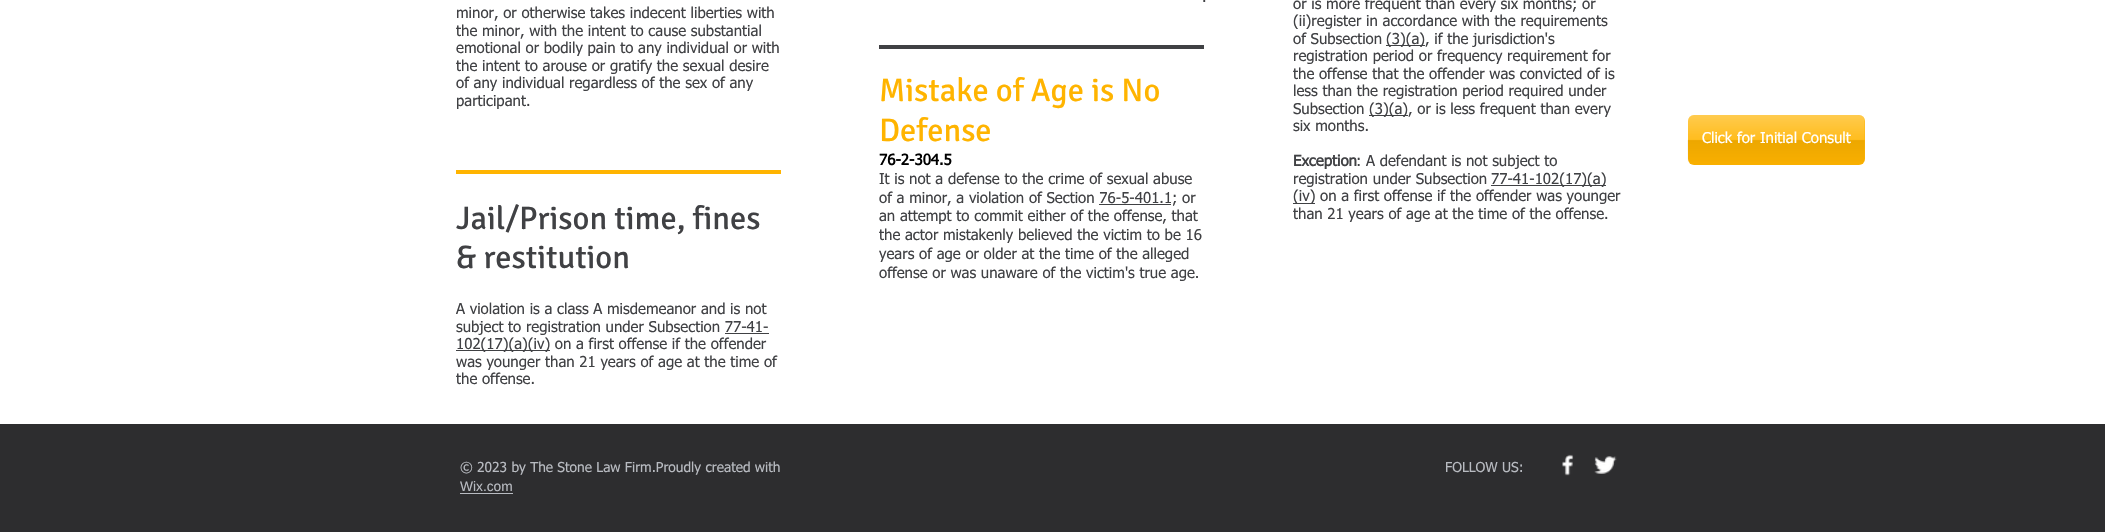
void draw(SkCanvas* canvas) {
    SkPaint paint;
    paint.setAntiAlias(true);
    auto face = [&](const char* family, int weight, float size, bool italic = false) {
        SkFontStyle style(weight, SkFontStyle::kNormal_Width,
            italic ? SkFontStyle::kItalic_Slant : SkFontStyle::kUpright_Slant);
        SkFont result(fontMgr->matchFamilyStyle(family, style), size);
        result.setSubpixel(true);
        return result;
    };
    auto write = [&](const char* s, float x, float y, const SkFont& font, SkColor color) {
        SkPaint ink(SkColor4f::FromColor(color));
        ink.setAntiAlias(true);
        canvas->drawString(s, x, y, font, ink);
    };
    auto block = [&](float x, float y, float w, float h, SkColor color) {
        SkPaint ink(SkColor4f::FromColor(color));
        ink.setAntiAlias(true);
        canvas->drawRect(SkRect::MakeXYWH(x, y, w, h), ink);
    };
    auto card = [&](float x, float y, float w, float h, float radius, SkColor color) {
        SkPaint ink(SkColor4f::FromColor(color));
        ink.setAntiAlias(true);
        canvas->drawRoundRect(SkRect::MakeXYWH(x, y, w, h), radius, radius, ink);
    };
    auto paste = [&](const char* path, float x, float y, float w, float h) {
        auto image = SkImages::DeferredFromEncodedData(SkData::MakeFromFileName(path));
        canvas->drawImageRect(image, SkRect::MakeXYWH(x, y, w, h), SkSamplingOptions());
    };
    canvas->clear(SK_ColorWHITE);
    auto kFont1 = face("tahoma", 400, 15);
    write("minor, or otherwise takes indecent liberties with", 456, 18, kFont1, SkColorSetRGB(64, 65, 68));
    write("the minor, with the intent to cause substantial", 456, 36, kFont1, SkColorSetRGB(64, 65, 68));
    write("emotional or bodily pain to any individual or with", 456, 53, kFont1, SkColorSetRGB(64, 65, 68));
    write("the intent to arouse or gratify the sexual desire", 456, 71, kFont1, SkColorSetRGB(64, 65, 68));
    write("of any individual regardless of the sex of any", 456, 88, kFont1, SkColorSetRGB(64, 65, 68));
    write("participant.", 456, 106, kFont1, SkColorSetRGB(64, 65, 68));
    write(".", 1202, 2, kFont1, SkColorSetRGB(64, 65, 68));
    write("or is more frequent than every six months; or", 1293, 9, kFont1, SkColorSetRGB(64, 65, 68));
    write("(ii)register in accordance with the requirements", 1293, 26, kFont1, SkColorSetRGB(64, 65, 68));
    write("of Subsection", 1293, 44, kFont1, SkColorSetRGB(64, 65, 68));
    block(1386, 45, 39, 1, SkColorSetRGB(64, 65, 68));
    write("(3)(a), if the jurisdiction's", 1386, 44, kFont1, SkColorSetRGB(64, 65, 68));
    write("registration period or frequency requirement for", 1293, 61, kFont1, SkColorSetRGB(64, 65, 68));
    write("the offense that the offender was convicted of is", 1293, 79, kFont1, SkColorSetRGB(64, 65, 68));
    write("less than the registration period required under", 1293, 96, kFont1, SkColorSetRGB(64, 65, 68));
    write("Subsection", 1293, 114, kFont1, SkColorSetRGB(64, 65, 68));
    block(1369, 115, 39, 1, SkColorSetRGB(64, 65, 68));
    write("(3)(a), or is less frequent than every", 1369, 114, kFont1, SkColorSetRGB(64, 65, 68));
    write("six months.", 1293, 131, kFont1, SkColorSetRGB(64, 65, 68));
    auto kFont2 = face("tahoma", 700, 15);
    write("Exception", 1293, 166, kFont2, SkColorSetRGB(64, 65, 68));
    write(": A defendant is not subject to", 1356, 166, kFont1, SkColorSetRGB(64, 65, 68));
    write("registration under Subsection", 1293, 184, kFont1, SkColorSetRGB(64, 65, 68));
    block(1491, 185, 115, 1, SkColorSetRGB(64, 65, 68));
    write("77-41-102(17)(a)", 1491, 184, kFont1, SkColorSetRGB(64, 65, 68));
    block(1293, 203, 22, 1, SkColorSetRGB(64, 65, 68));
    write("(iv) on a first offense if the offender was younger", 1293, 201, kFont1, SkColorSetRGB(64, 65, 68));
    write("than 21 years of age at the time of the offense.", 1293, 219, kFont1, SkColorSetRGB(64, 65, 68));
    block(879, 45, 325, 4, SkColorSetRGB(64, 65, 68));
    block(456, 170, 325, 4, SkColorSetRGB(255, 180, 0));
    auto kFont3 = face("Signika", 400, 32.5f);
    write("Mistake of Age is No", 879, 101, kFont3, SkColorSetRGB(255, 180, 0));
    write("Defense", 879, 141, kFont3, SkColorSetRGB(255, 180, 0));
    write("76-2-304.5", 879, 165, kFont2, SK_ColorBLACK);
    write("It is not a defense to the crime of sexual abuse", 879, 184, kFont1, SkColorSetRGB(64, 65, 68));
    write("of a minor, a violation of Section 76-5-401.1; or", 879, 203, kFont1, SkColorSetRGB(64, 65, 68));
    block(1099, 204, 72, 1, SkColorSetRGB(64, 65, 68));
    write("an attempt to commit either of the offense, that", 879, 221, kFont1, SkColorSetRGB(64, 65, 68));
    write("the actor mistakenly believed the victim to be 16", 879, 240, kFont1, SkColorSetRGB(64, 65, 68));
    write("years of age or older at the time of the alleged", 879, 259, kFont1, SkColorSetRGB(64, 65, 68));
    write("offense or was unaware of the victim's true age.", 879, 278, kFont1, SkColorSetRGB(64, 65, 68));
    write("Jail/Prison time, fines", 456, 229, kFont3, SkColorSetRGB(64, 65, 68));
    write("& restitution", 456, 268, kFont3, SkColorSetRGB(64, 65, 68));
    write("A violation is a class A misdemeanor and is not", 456, 314, kFont1, SkColorSetRGB(64, 65, 68));
    write("subject to registration under Subsection 77-41-", 456, 332, kFont1, SkColorSetRGB(64, 65, 68));
    block(456, 350, 94, 1, SkColorSetRGB(64, 65, 68));
    write("102(17)(a)(iv) on a first offense if the offender", 456, 349, kFont1, SkColorSetRGB(64, 65, 68));
    block(725, 333, 44, 1, SkColorSetRGB(64, 65, 68));
    write("was younger than 21 years of age at the time of", 456, 367, kFont1, SkColorSetRGB(64, 65, 68));
    write("the offense.", 456, 384, kFont1, SkColorSetRGB(64, 65, 68));
    card(1688, 115, 177, 50, 6, SkColorSetRGB(255, 180, 0));
    paste("pic1.png", 1687, 115, 178, 50);
    write("Click for Initial Consult", 1702, 143, kFont1, SK_ColorWHITE);
    block(0, 424, 2105, 108, SkColorSetRGB(45, 45, 47));
    auto kFont4 = face("tahoma", 400, 13.75f);
    write("© 2023 by The Stone Law Firm.Proudly created with", 460, 472, kFont4, SkColorSetRGB(184, 187, 193));
    auto kFont5 = face("Liberation Sans", 400, 13.75f);
    write("Wix.com", 460, 491, kFont5, SkColorSetRGB(184, 187, 193));
    block(460, 493, 53, 1, SkColorSetRGB(184, 187, 193));
    write("FOLLOW US:", 1445, 472, kFont4, SkColorSetRGB(184, 187, 193));
    paste("pic2.png", 1562, 454, 12, 22);
    paste("pic3.png", 1594, 456, 23, 18);
}
